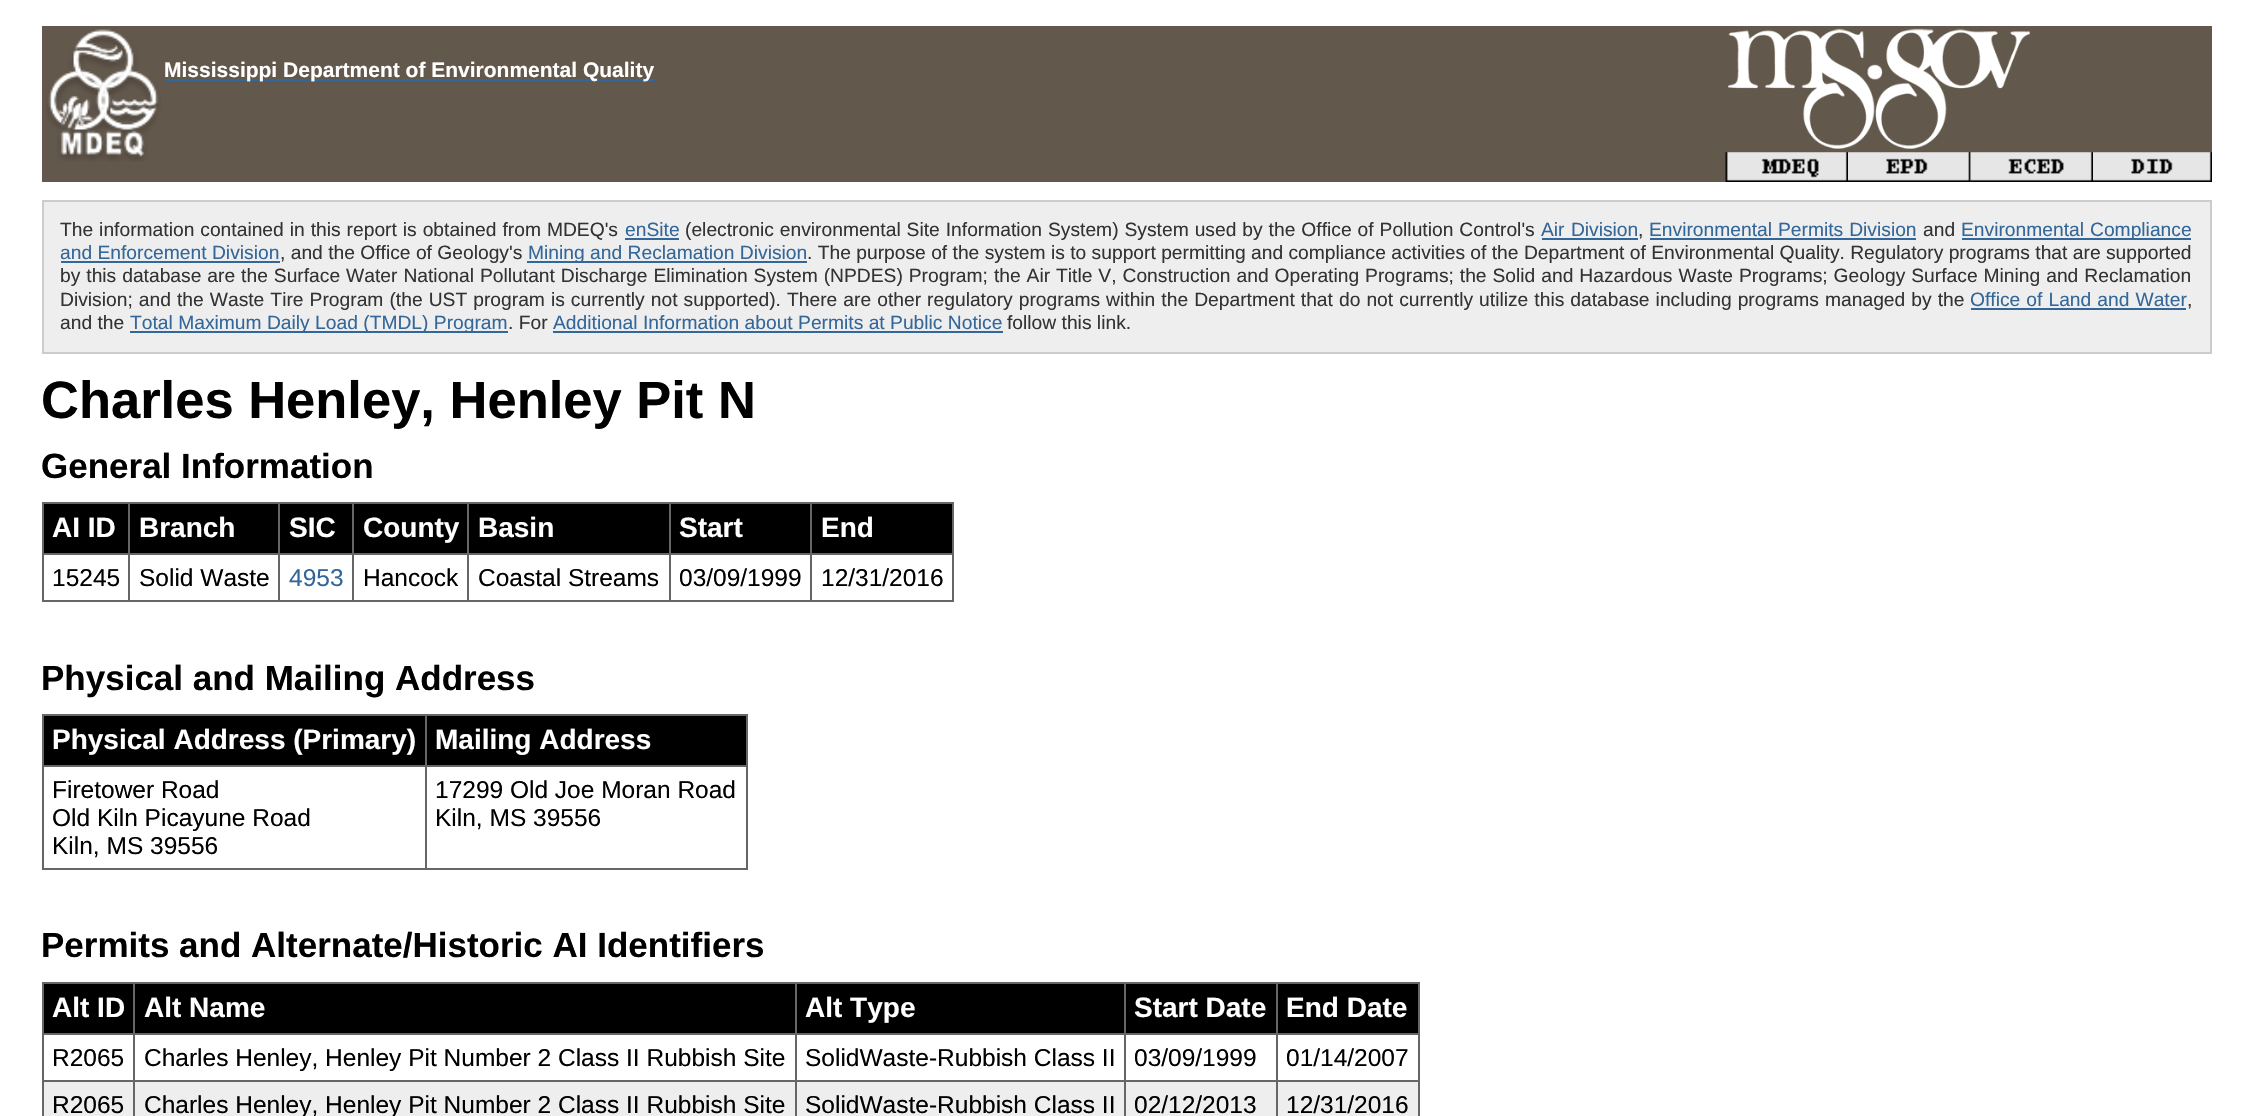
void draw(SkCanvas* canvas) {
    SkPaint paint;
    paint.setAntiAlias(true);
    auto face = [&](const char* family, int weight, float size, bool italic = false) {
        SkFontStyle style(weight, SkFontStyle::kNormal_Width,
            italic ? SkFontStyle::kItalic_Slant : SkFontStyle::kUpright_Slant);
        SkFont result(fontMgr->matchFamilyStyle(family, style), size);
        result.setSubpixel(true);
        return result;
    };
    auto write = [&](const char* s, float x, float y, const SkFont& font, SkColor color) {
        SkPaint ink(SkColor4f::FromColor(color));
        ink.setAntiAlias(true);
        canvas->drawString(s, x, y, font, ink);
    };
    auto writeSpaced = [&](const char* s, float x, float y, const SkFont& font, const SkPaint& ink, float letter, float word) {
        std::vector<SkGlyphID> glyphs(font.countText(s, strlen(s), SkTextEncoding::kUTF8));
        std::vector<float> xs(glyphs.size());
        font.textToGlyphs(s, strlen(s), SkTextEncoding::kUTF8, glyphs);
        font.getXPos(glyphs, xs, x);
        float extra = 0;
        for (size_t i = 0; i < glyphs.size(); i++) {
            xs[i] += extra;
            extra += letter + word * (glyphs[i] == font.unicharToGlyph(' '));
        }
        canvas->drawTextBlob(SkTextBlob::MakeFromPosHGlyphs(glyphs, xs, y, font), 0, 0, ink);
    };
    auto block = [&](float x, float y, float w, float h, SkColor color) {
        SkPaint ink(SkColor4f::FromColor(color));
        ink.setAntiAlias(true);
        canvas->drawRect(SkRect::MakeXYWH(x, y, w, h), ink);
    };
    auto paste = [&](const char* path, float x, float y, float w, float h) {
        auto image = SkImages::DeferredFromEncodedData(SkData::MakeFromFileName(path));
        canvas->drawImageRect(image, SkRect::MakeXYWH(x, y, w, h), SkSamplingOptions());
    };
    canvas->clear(SK_ColorWHITE);
    block(42, 26, 2170, 156, SkColorSetRGB(99, 88, 76));
    paste("pic1.png", 46, 29, 115, 133);
    block(165, 79, 490, 2, SkColorSetRGB(51, 102, 153));
    auto kFont1 = face("Liberation Sans", 700, 21);
    write("Mississippi Department of Environmental Quality", 164, 77, kFont1, SK_ColorWHITE);
    paste("pic2.png", 1728, 28, 303, 121);
    paste("pic3.png", 1725, 152, 123, 30);
    paste("pic4.png", 1848, 152, 123, 30);
    paste("pic5.png", 1970, 152, 123, 30);
    paste("pic6.png", 2093, 152, 119, 30);
    paint.setColor(SkColorSetRGB(238, 238, 238));
    canvas->drawRect(SkRect::MakeXYWH(43, 201, 2168, 152), paint);
    paint.setStyle(SkPaint::kStroke_Style);
    paint.setStrokeWidth(2);
    paint.setColor(SkColorSetRGB(204, 204, 204));
    canvas->drawRect(SkRect::MakeXYWH(43, 201, 2168, 152), paint);
    auto kFont2 = face("Liberation Sans", 400, 19.25f);
    paint.setStyle(SkPaint::kFill_Style);
    paint.setColor(SkColorSetRGB(51, 51, 51));
    writeSpaced("The information contained in this report is obtained from MDEQ's", 60, 236, kFont2, paint, 0, 0.6f);
    write("enSite", 625, 236, kFont2, SkColorSetRGB(51, 102, 153));
    block(625, 238, 54, 2, SkColorSetRGB(51, 102, 153));
    writeSpaced("(electronic environmental Site Information System) System used by the Office of Pollution Control's", 685, 236, kFont2, paint, 0, 0.6f);
    paint.setColor(SkColorSetRGB(51, 102, 153));
    writeSpaced("Air Division", 1541, 236, kFont2, paint, 0, 1);
    block(1542, 238, 96, 2, SkColorSetRGB(51, 102, 153));
    write(",", 1638, 236, kFont2, SkColorSetRGB(51, 51, 51));
    writeSpaced("Environmental Permits Division", 1649, 236, kFont2, paint, 0, 0.6f);
    block(1650, 238, 266, 2, SkColorSetRGB(51, 102, 153));
    write("and", 1923, 236, kFont2, SkColorSetRGB(51, 51, 51));
    block(1962, 238, 229, 2, SkColorSetRGB(51, 102, 153));
    writeSpaced("Environmental Compliance", 1961, 236, kFont2, paint, 0, 0.6f);
    write("and Enforcement Division", 60, 259, kFont2, SkColorSetRGB(51, 102, 153));
    block(61, 261, 219, 2, SkColorSetRGB(51, 102, 153));
    write(", and the Office of Geology's", 280, 259, kFont2, SkColorSetRGB(51, 51, 51));
    block(527, 261, 280, 2, SkColorSetRGB(51, 102, 153));
    write("Mining and Reclamation Division", 528, 259, kFont2, SkColorSetRGB(51, 102, 153));
    write(". The purpose of the system is to support permitting and compliance activities of the Department of Environmental Quality. Regulatory programs that are supported", 807, 259, kFont2, SkColorSetRGB(51, 51, 51));
    paint.setColor(SkColorSetRGB(51, 51, 51));
    writeSpaced("by this database are the Surface Water National Pollutant Discharge Elimination System (NPDES) Program; the Air Title V, Construction and Operating Programs; the Solid and Hazardous Waste Programs; Geology Surface Mining and Reclamation", 60, 282, kFont2, paint, 0, 0.6f);
    writeSpaced("Division; and the Waste Tire Program (the UST program is currently not supported). There are other regulatory programs within the Department that do not currently utilize this database including programs managed by the", 60, 306, kFont2, paint, 0, 0.7f);
    paint.setColor(SkColorSetRGB(51, 102, 153));
    writeSpaced("Office of Land and Water", 1970, 306, kFont2, paint, 0, 0.7f);
    block(1971, 308, 215, 2, SkColorSetRGB(51, 102, 153));
    write(",", 2187, 306, kFont2, SkColorSetRGB(51, 51, 51));
    write("and the", 60, 329, kFont2, SkColorSetRGB(51, 51, 51));
    block(130, 331, 378, 2, SkColorSetRGB(51, 102, 153));
    write("Total Maximum Daily Load (TMDL) Program", 130, 329, kFont2, SkColorSetRGB(51, 102, 153));
    write(". For", 508, 329, kFont2, SkColorSetRGB(51, 51, 51));
    write("Additional Information about Permits at Public Notice", 553, 329, kFont2, SkColorSetRGB(51, 102, 153));
    block(553, 331, 450, 2, SkColorSetRGB(51, 102, 153));
    write("follow this link.", 1007, 329, kFont2, SkColorSetRGB(51, 51, 51));
    auto kFont3 = face("Liberation Sans", 700, 52.5f);
    write("Charles Henley, Henley Pit N", 41, 418, kFont3, SK_ColorBLACK);
    auto kFont4 = face("Liberation Sans", 700, 35);
    write("General Information", 41, 478, kFont4, SK_ColorBLACK);
    block(44, 504, 84, 49, SK_ColorBLACK);
    block(810, 502, 144, 2, SkColorSetRGB(102, 102, 102));
    block(810, 553, 144, 2, SkColorSetRGB(102, 102, 102));
    block(952, 553, 2, 49, SkColorSetRGB(102, 102, 102));
    block(810, 600, 144, 2, SkColorSetRGB(102, 102, 102));
    block(810, 553, 2, 49, SkColorSetRGB(102, 102, 102));
    block(669, 553, 143, 2, SkColorSetRGB(102, 102, 102));
    block(810, 502, 2, 53, SkColorSetRGB(102, 102, 102));
    block(669, 502, 143, 2, SkColorSetRGB(102, 102, 102));
    block(669, 600, 143, 2, SkColorSetRGB(102, 102, 102));
    block(669, 553, 2, 49, SkColorSetRGB(102, 102, 102));
    block(467, 553, 203, 2, SkColorSetRGB(102, 102, 102));
    block(669, 502, 2, 53, SkColorSetRGB(102, 102, 102));
    block(467, 502, 203, 2, SkColorSetRGB(102, 102, 102));
    block(467, 600, 203, 2, SkColorSetRGB(102, 102, 102));
    block(467, 553, 2, 49, SkColorSetRGB(102, 102, 102));
    block(352, 553, 117, 2, SkColorSetRGB(102, 102, 102));
    block(467, 502, 2, 53, SkColorSetRGB(102, 102, 102));
    block(352, 502, 117, 2, SkColorSetRGB(102, 102, 102));
    block(352, 600, 117, 2, SkColorSetRGB(102, 102, 102));
    block(352, 553, 2, 49, SkColorSetRGB(102, 102, 102));
    block(278, 553, 76, 2, SkColorSetRGB(102, 102, 102));
    block(352, 502, 2, 53, SkColorSetRGB(102, 102, 102));
    block(278, 502, 76, 2, SkColorSetRGB(102, 102, 102));
    block(278, 600, 76, 2, SkColorSetRGB(102, 102, 102));
    block(278, 553, 2, 49, SkColorSetRGB(102, 102, 102));
    block(128, 553, 152, 2, SkColorSetRGB(102, 102, 102));
    block(278, 502, 2, 53, SkColorSetRGB(102, 102, 102));
    block(128, 502, 152, 2, SkColorSetRGB(102, 102, 102));
    block(128, 600, 152, 2, SkColorSetRGB(102, 102, 102));
    block(128, 553, 2, 49, SkColorSetRGB(102, 102, 102));
    block(42, 553, 88, 2, SkColorSetRGB(102, 102, 102));
    block(128, 502, 2, 53, SkColorSetRGB(102, 102, 102));
    block(42, 502, 88, 2, SkColorSetRGB(102, 102, 102));
    block(42, 600, 88, 2, SkColorSetRGB(102, 102, 102));
    block(42, 553, 2, 49, SkColorSetRGB(102, 102, 102));
    block(42, 502, 2, 53, SkColorSetRGB(102, 102, 102));
    auto kFont5 = face("Liberation Sans", 700, 28);
    write("AI ID", 52, 537, kFont5, SK_ColorWHITE);
    block(130, 504, 148, 49, SK_ColorBLACK);
    write("Branch", 139, 537, kFont5, SK_ColorWHITE);
    block(280, 504, 72, 49, SK_ColorBLACK);
    write("SIC", 289, 537, kFont5, SK_ColorWHITE);
    block(354, 504, 113, 49, SK_ColorBLACK);
    write("County", 363, 537, kFont5, SK_ColorWHITE);
    block(469, 504, 200, 49, SK_ColorBLACK);
    write("Basin", 478, 537, kFont5, SK_ColorWHITE);
    block(671, 504, 139, 49, SK_ColorBLACK);
    write("Start", 679, 537, kFont5, SK_ColorWHITE);
    block(812, 504, 140, 49, SK_ColorBLACK);
    block(952, 502, 2, 53, SkColorSetRGB(102, 102, 102));
    write("End", 821, 537, kFont5, SK_ColorWHITE);
    auto kFont6 = face("Liberation Sans", 400, 24.5f);
    write("15245", 52, 586, kFont6, SK_ColorBLACK);
    write("Solid Waste", 139, 586, kFont6, SK_ColorBLACK);
    write("4953", 289, 586, kFont6, SkColorSetRGB(51, 102, 153));
    write("Hancock", 363, 586, kFont6, SK_ColorBLACK);
    write("Coastal Streams", 478, 586, kFont6, SK_ColorBLACK);
    write("03/09/1999", 679, 586, kFont6, SK_ColorBLACK);
    write("12/31/2016", 821, 586, kFont6, SK_ColorBLACK);
    write("Physical and Mailing Address", 41, 690, kFont4, SK_ColorBLACK);
    block(44, 716, 381, 49, SK_ColorBLACK);
    block(425, 714, 322, 2, SkColorSetRGB(102, 102, 102));
    block(425, 765, 322, 2, SkColorSetRGB(102, 102, 102));
    block(746, 765, 2, 105, SkColorSetRGB(102, 102, 102));
    block(425, 868, 322, 2, SkColorSetRGB(102, 102, 102));
    block(425, 765, 2, 105, SkColorSetRGB(102, 102, 102));
    block(42, 765, 385, 2, SkColorSetRGB(102, 102, 102));
    block(425, 714, 2, 53, SkColorSetRGB(102, 102, 102));
    block(42, 714, 385, 2, SkColorSetRGB(102, 102, 102));
    block(42, 868, 385, 2, SkColorSetRGB(102, 102, 102));
    block(42, 765, 2, 105, SkColorSetRGB(102, 102, 102));
    block(42, 714, 2, 53, SkColorSetRGB(102, 102, 102));
    write("Physical Address (Primary)", 52, 749, kFont5, SK_ColorWHITE);
    block(427, 716, 319, 49, SK_ColorBLACK);
    block(746, 714, 2, 53, SkColorSetRGB(102, 102, 102));
    write("Mailing Address", 435, 749, kFont5, SK_ColorWHITE);
    write("Firetower Road", 52, 798, kFont6, SK_ColorBLACK);
    write("Old Kiln Picayune Road", 52, 826, kFont6, SK_ColorBLACK);
    write("Kiln, MS 39556", 52, 854, kFont6, SK_ColorBLACK);
    write("17299 Old Joe Moran Road", 435, 798, kFont6, SK_ColorBLACK);
    write("Kiln, MS 39556", 435, 826, kFont6, SK_ColorBLACK);
    write("Permits and Alternate/Historic AI Identifiers", 41, 957, kFont4, SK_ColorBLACK);
    block(44, 984, 89, 49, SK_ColorBLACK);
    block(1276, 982, 143, 2, SkColorSetRGB(102, 102, 102));
    block(1276, 1033, 143, 2, SkColorSetRGB(102, 102, 102));
    block(1276, 1080, 143, 2, SkColorSetRGB(102, 102, 102));
    block(44, 1082, 1374, 34, SkColorSetRGB(238, 238, 238));
    block(1276, 1080, 2, 36, SkColorSetRGB(102, 102, 102));
    block(1124, 1080, 154, 2, SkColorSetRGB(102, 102, 102));
    block(1276, 1033, 2, 49, SkColorSetRGB(102, 102, 102));
    block(1124, 1033, 154, 2, SkColorSetRGB(102, 102, 102));
    block(1276, 982, 2, 52, SkColorSetRGB(102, 102, 102));
    block(1124, 982, 154, 2, SkColorSetRGB(102, 102, 102));
    block(1124, 1080, 2, 36, SkColorSetRGB(102, 102, 102));
    block(795, 1080, 330, 2, SkColorSetRGB(102, 102, 102));
    block(1124, 1033, 2, 49, SkColorSetRGB(102, 102, 102));
    block(795, 1033, 330, 2, SkColorSetRGB(102, 102, 102));
    block(1124, 982, 2, 52, SkColorSetRGB(102, 102, 102));
    block(795, 982, 330, 2, SkColorSetRGB(102, 102, 102));
    block(795, 1080, 2, 36, SkColorSetRGB(102, 102, 102));
    block(133, 1080, 663, 2, SkColorSetRGB(102, 102, 102));
    block(795, 1033, 2, 49, SkColorSetRGB(102, 102, 102));
    block(133, 1033, 663, 2, SkColorSetRGB(102, 102, 102));
    block(795, 982, 2, 52, SkColorSetRGB(102, 102, 102));
    block(133, 982, 663, 2, SkColorSetRGB(102, 102, 102));
    block(133, 1080, 2, 36, SkColorSetRGB(102, 102, 102));
    block(42, 1080, 93, 2, SkColorSetRGB(102, 102, 102));
    block(133, 1033, 2, 49, SkColorSetRGB(102, 102, 102));
    block(42, 1033, 93, 2, SkColorSetRGB(102, 102, 102));
    block(133, 982, 2, 52, SkColorSetRGB(102, 102, 102));
    block(42, 982, 93, 2, SkColorSetRGB(102, 102, 102));
    block(42, 1080, 2, 36, SkColorSetRGB(102, 102, 102));
    block(42, 1033, 2, 49, SkColorSetRGB(102, 102, 102));
    block(42, 982, 2, 52, SkColorSetRGB(102, 102, 102));
    write("Alt ID", 52, 1017, kFont5, SK_ColorWHITE);
    block(135, 984, 660, 49, SK_ColorBLACK);
    write("Alt Name", 144, 1017, kFont5, SK_ColorWHITE);
    block(797, 984, 327, 49, SK_ColorBLACK);
    write("Alt Type", 805, 1017, kFont5, SK_ColorWHITE);
    block(1126, 984, 150, 49, SK_ColorBLACK);
    write("Start Date", 1134, 1017, kFont5, SK_ColorWHITE);
    block(1278, 984, 140, 49, SK_ColorBLACK);
    block(1418, 1080, 2, 36, SkColorSetRGB(102, 102, 102));
    block(1418, 1033, 2, 49, SkColorSetRGB(102, 102, 102));
    block(1418, 982, 2, 52, SkColorSetRGB(102, 102, 102));
    write("End Date", 1286, 1017, kFont5, SK_ColorWHITE);
    write("R2065", 52, 1066, kFont6, SK_ColorBLACK);
    write("Charles Henley, Henley Pit Number 2 Class II Rubbish Site", 144, 1066, kFont6, SK_ColorBLACK);
    write("SolidWaste-Rubbish Class II", 805, 1066, kFont6, SK_ColorBLACK);
    write("03/09/1999", 1134, 1066, kFont6, SK_ColorBLACK);
    write("01/14/2007", 1286, 1066, kFont6, SK_ColorBLACK);
    write("R2065", 52, 1113, kFont6, SK_ColorBLACK);
    write("Charles Henley, Henley Pit Number 2 Class II Rubbish Site", 144, 1113, kFont6, SK_ColorBLACK);
    write("SolidWaste-Rubbish Class II", 805, 1113, kFont6, SK_ColorBLACK);
    write("02/12/2013", 1134, 1113, kFont6, SK_ColorBLACK);
    write("12/31/2016", 1286, 1113, kFont6, SK_ColorBLACK);
}
